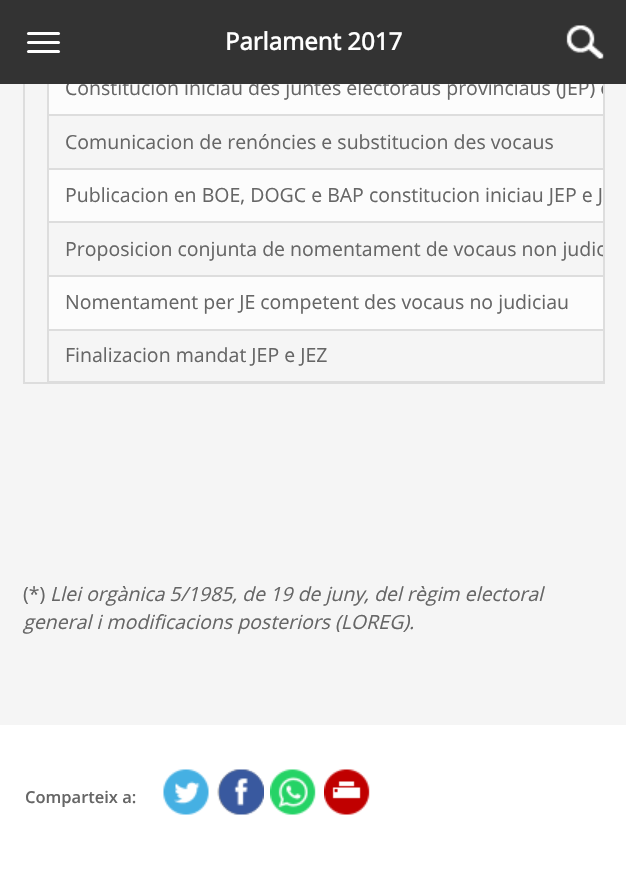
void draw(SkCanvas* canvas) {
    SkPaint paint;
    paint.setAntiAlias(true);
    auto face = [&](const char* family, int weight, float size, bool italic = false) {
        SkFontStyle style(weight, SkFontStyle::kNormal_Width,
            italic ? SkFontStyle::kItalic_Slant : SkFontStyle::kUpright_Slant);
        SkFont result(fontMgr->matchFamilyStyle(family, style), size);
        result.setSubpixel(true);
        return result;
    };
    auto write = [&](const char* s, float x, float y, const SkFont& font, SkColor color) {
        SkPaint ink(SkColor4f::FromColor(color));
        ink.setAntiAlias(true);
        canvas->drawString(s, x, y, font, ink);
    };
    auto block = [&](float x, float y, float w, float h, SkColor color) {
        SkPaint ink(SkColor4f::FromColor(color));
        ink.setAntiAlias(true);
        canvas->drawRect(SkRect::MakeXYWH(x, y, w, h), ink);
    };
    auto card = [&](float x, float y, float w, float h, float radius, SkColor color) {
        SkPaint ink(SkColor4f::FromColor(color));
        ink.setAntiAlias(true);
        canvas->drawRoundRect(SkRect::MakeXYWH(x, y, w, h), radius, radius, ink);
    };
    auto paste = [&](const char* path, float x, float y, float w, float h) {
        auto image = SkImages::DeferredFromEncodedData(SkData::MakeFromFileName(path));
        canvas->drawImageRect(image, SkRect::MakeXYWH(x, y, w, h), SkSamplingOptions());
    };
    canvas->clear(SK_ColorWHITE);
    block(0, 84, 626, 641, SkColorSetRGB(245, 245, 245));
    paint.setStyle(SkPaint::kStroke_Style);
    paint.setStrokeWidth(2);
    paint.setColor(SkColorSetRGB(221, 221, 221));
    canvas->drawRect(SkRect::MakeXYWH(24, 9, 580, 374), paint);
    block(49, 84, 554, 30, SkColorSetRGB(252, 252, 252));
    canvas->save();
    canvas->clipRect(SkRect::MakeXYWH(24, 9, 579, 374));
    auto kFont1 = face("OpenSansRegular", 400, 19.5f);
    write("Constitucion iniciau des juntes electoraus provinciaus (JEP) e", 65, 95, kFont1, SkColorSetRGB(102, 102, 102));
    canvas->restore();
    block(0, 0, 626, 84, SkColorSetRGB(51, 51, 51));
    card(27, 32, 33, 3, 1.5f, SK_ColorWHITE);
    card(27, 41, 33, 3, 1.5f, SK_ColorWHITE);
    card(27, 50, 33, 3, 1.5f, SK_ColorWHITE);
    auto kFont2 = face("OpenSansRegular", 700, 24);
    write("Parlament 2017", 225, 50, kFont2, SK_ColorWHITE);
    paste("pic1.png", 566, 25, 38, 34);
    block(47, 114, 556, 2, SkColorSetRGB(221, 221, 221));
    block(47, 168, 556, 2, SkColorSetRGB(221, 221, 221));
    block(47, 221, 556, 2, SkColorSetRGB(221, 221, 221));
    block(47, 275, 556, 2, SkColorSetRGB(221, 221, 221));
    block(47, 329, 556, 2, SkColorSetRGB(221, 221, 221));
    block(47, 381, 556, 1, SkColorSetRGB(221, 221, 221));
    block(47, 329, 2, 54, SkColorSetRGB(221, 221, 221));
    block(47, 275, 2, 55, SkColorSetRGB(221, 221, 221));
    block(47, 221, 2, 55, SkColorSetRGB(221, 221, 221));
    block(47, 168, 2, 54, SkColorSetRGB(221, 221, 221));
    block(47, 84, 2, 86, SkColorSetRGB(221, 221, 221));
    write("Comunicacion de renóncies e substitucion des vocaus", 65, 149, kFont1, SkColorSetRGB(102, 102, 102));
    block(49, 170, 554, 51, SkColorSetRGB(252, 252, 252));
    write("Publicacion en BOE, DOGC e BAP constitucion iniciau JEP e J", 65, 202, kFont1, SkColorSetRGB(102, 102, 102));
    canvas->save();
    canvas->clipRect(SkRect::MakeXYWH(24, 9, 579, 374));
    write("Proposicion conjunta de nomentament de vocaus non judic", 65, 256, kFont1, SkColorSetRGB(102, 102, 102));
    canvas->restore();
    block(49, 277, 554, 52, SkColorSetRGB(252, 252, 252));
    write("Nomentament per JE competent des vocaus no judiciau", 65, 309, kFont1, SkColorSetRGB(102, 102, 102));
    write("Finalizacion mandat JEP e JEZ", 65, 362, kFont1, SkColorSetRGB(102, 102, 102));
    write("(*)", 23, 601, kFont1, SkColorSetRGB(102, 102, 102));
    auto kFont3 = face("OpenSansRegular", 400, 19.5f, true);
    write("Llei orgànica 5/1985, de 19 de juny, del règim electoral", 50, 601, kFont3, SkColorSetRGB(102, 102, 102));
    write("general i modificacions posteriors (LOREG).", 23, 629, kFont3, SkColorSetRGB(102, 102, 102));
    auto kFont4 = face("Open Sans", 600, 16.5f);
    write("Comparteix a:", 25, 803, kFont4, SkColorSetRGB(102, 102, 102));
    paste("pic2.png", 163, 769, 46, 46);
    paste("pic3.png", 217, 769, 47, 46);
    paste("pic4.png", 270, 769, 46, 46);
    paste("pic5.png", 324, 769, 46, 46);
}
